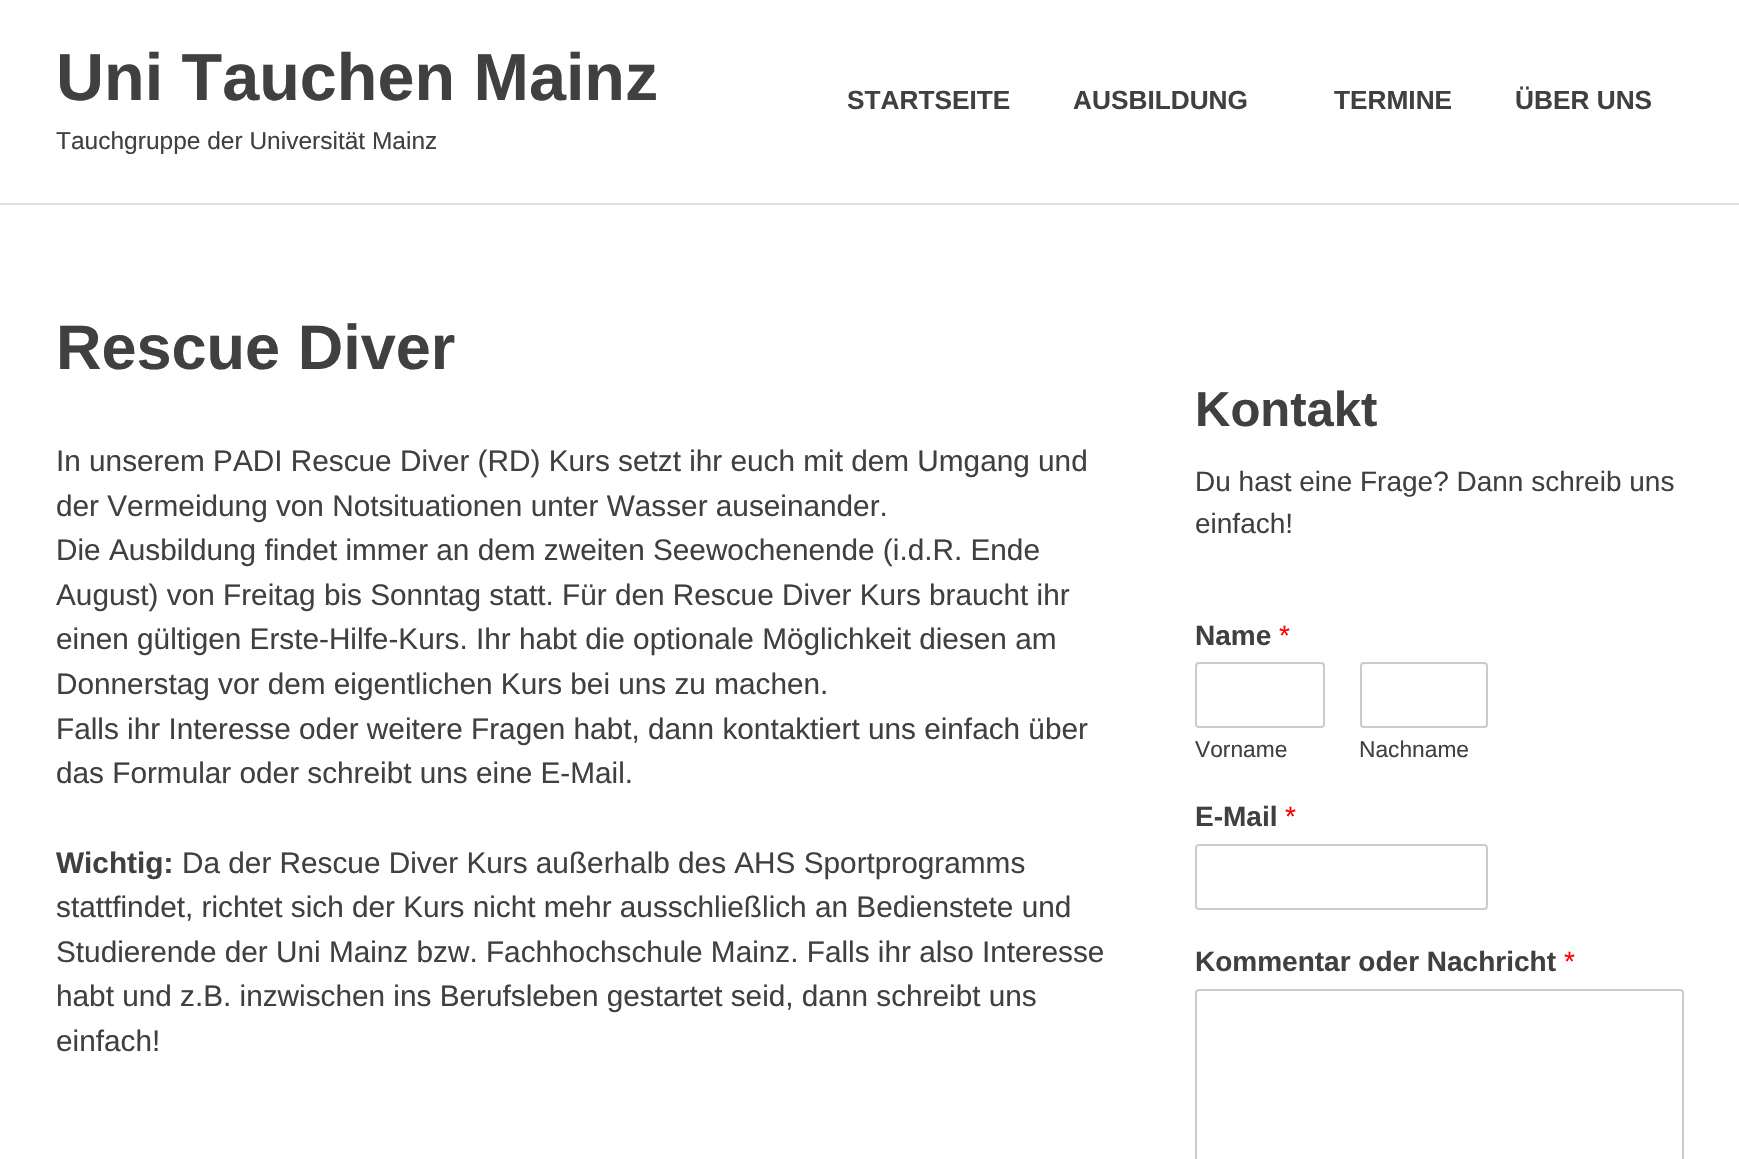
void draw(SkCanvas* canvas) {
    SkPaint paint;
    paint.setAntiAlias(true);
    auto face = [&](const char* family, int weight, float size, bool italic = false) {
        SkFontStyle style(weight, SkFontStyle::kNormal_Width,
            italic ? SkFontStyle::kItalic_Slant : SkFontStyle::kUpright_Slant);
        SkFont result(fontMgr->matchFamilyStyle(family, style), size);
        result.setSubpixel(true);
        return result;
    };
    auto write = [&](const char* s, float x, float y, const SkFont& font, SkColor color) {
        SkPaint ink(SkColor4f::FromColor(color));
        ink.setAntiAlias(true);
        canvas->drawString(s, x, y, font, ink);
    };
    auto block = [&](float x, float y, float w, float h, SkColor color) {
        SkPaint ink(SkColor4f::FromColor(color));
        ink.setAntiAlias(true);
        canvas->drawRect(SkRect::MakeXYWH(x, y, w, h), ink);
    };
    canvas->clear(SK_ColorWHITE);
    block(0, 203, 1739, 2, SkColorSetRGB(224, 224, 224));
    auto kFont1 = face("Liberation Sans", 700, 66.5f);
    write("Uni Tauchen Mainz", 56, 100, kFont1, SkColorSetRGB(64, 64, 64));
    auto kFont2 = face("Liberation Sans", 400, 24.5f);
    write("Tauchgruppe der Universität Mainz", 56, 149, kFont2, SkColorSetRGB(64, 64, 64));
    auto kFont3 = face("Liberation Sans", 700, 26.25f);
    write("STARTSEITE", 847, 109, kFont3, SkColorSetRGB(64, 64, 64));
    write("AUSBILDUNG", 1073, 109, kFont3, SkColorSetRGB(64, 64, 64));
    write("TERMINE", 1334, 109, kFont3, SkColorSetRGB(64, 64, 64));
    write("ÜBER UNS", 1515, 109, kFont3, SkColorSetRGB(64, 64, 64));
    auto kFont4 = face("Liberation Sans", 700, 63);
    write("Rescue Diver", 56, 369, kFont4, SkColorSetRGB(64, 64, 64));
    auto kFont5 = face("Liberation Sans", 400, 29.75f);
    write("In unserem PADI Rescue Diver (RD) Kurs setzt ihr euch mit dem Umgang und", 56, 471, kFont5, SkColorSetRGB(64, 64, 64));
    write("der Vermeidung von Notsituationen unter Wasser auseinander.", 56, 516, kFont5, SkColorSetRGB(64, 64, 64));
    write("Die Ausbildung findet immer an dem zweiten Seewochenende (i.d.R. Ende", 56, 560, kFont5, SkColorSetRGB(64, 64, 64));
    write("August) von Freitag bis Sonntag statt. Für den Rescue Diver Kurs braucht ihr", 56, 605, kFont5, SkColorSetRGB(64, 64, 64));
    write("einen gültigen Erste-Hilfe-Kurs. Ihr habt die optionale Möglichkeit diesen am", 56, 649, kFont5, SkColorSetRGB(64, 64, 64));
    write("Donnerstag vor dem eigentlichen Kurs bei uns zu machen.", 56, 694, kFont5, SkColorSetRGB(64, 64, 64));
    write("Falls ihr Interesse oder weitere Fragen habt, dann kontaktiert uns einfach über", 56, 739, kFont5, SkColorSetRGB(64, 64, 64));
    write("das Formular oder schreibt uns eine E-Mail.", 56, 783, kFont5, SkColorSetRGB(64, 64, 64));
    auto kFont6 = face("Liberation Sans", 700, 29.75f);
    write("Wichtig:", 56, 873, kFont6, SkColorSetRGB(64, 64, 64));
    write("Da der Rescue Diver Kurs außerhalb des AHS Sportprogramms", 182, 873, kFont5, SkColorSetRGB(64, 64, 64));
    write("stattfindet, richtet sich der Kurs nicht mehr ausschließlich an Bedienstete und", 56, 917, kFont5, SkColorSetRGB(64, 64, 64));
    write("Studierende der Uni Mainz bzw. Fachhochschule Mainz. Falls ihr also Interesse", 56, 962, kFont5, SkColorSetRGB(64, 64, 64));
    write("habt und z.B. inzwischen ins Berufsleben gestartet seid, dann schreibt uns", 56, 1006, kFont5, SkColorSetRGB(64, 64, 64));
    write("einfach!", 56, 1051, kFont5, SkColorSetRGB(64, 64, 64));
    auto kFont7 = face("Liberation Sans", 700, 49);
    write("Kontakt", 1195, 426, kFont7, SkColorSetRGB(64, 64, 64));
    auto kFont8 = face("Liberation Sans", 400, 28);
    write("Du hast eine Frage? Dann schreib uns", 1195, 491, kFont8, SkColorSetRGB(64, 64, 64));
    write("einfach!", 1195, 533, kFont8, SkColorSetRGB(64, 64, 64));
    auto kFont9 = face("Liberation Sans", 700, 28);
    write("Name", 1195, 645, kFont9, SkColorSetRGB(64, 64, 64));
    write("*", 1279, 645, kFont8, SkColorSetRGB(255, 0, 0));
    paint.setStyle(SkPaint::kStroke_Style);
    paint.setStrokeWidth(2);
    paint.setColor(SkColorSetRGB(204, 204, 204));
    canvas->drawRoundRect(SkRect::MakeXYWH(1196, 663, 128, 64), 3, 3, paint);
    auto kFont10 = face("Liberation Sans", 400, 22.75f);
    write("Vorname", 1195, 757, kFont10, SkColorSetRGB(64, 64, 64));
    canvas->drawRoundRect(SkRect::MakeXYWH(1361, 663, 126, 64), 3, 3, paint);
    write("Nachname", 1359, 757, kFont10, SkColorSetRGB(64, 64, 64));
    write("E-Mail", 1195, 826, kFont9, SkColorSetRGB(64, 64, 64));
    write("*", 1285, 826, kFont8, SkColorSetRGB(255, 0, 0));
    canvas->drawRoundRect(SkRect::MakeXYWH(1196, 845, 291, 64), 3, 3, paint);
    write("Kommentar oder Nachricht", 1195, 971, kFont9, SkColorSetRGB(64, 64, 64));
    write("*", 1564, 971, kFont8, SkColorSetRGB(255, 0, 0));
    canvas->drawRoundRect(SkRect::MakeXYWH(1196, 990, 487, 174), 3, 3, paint);
}
